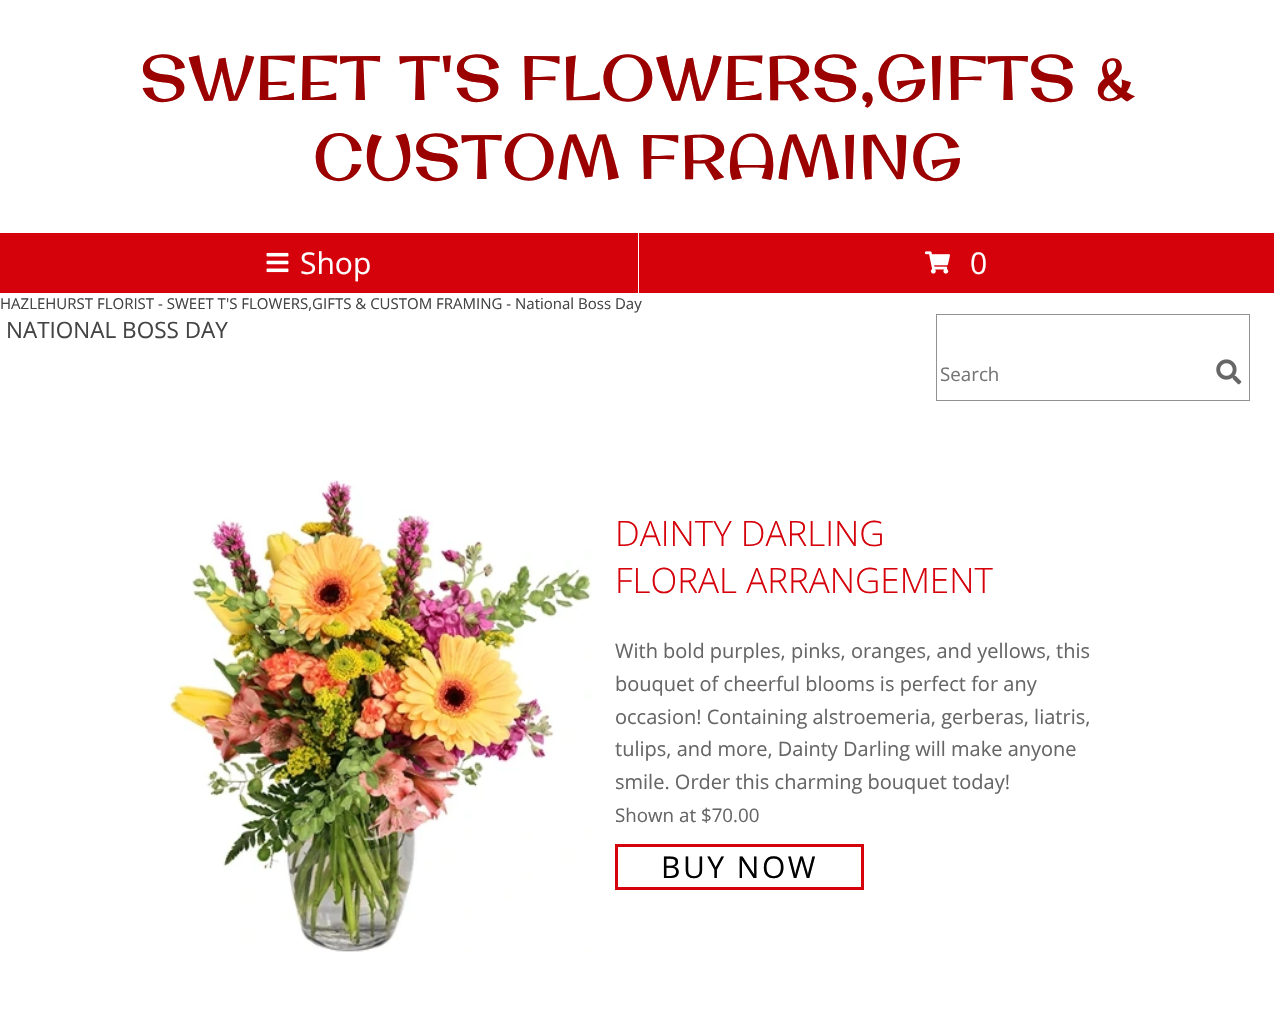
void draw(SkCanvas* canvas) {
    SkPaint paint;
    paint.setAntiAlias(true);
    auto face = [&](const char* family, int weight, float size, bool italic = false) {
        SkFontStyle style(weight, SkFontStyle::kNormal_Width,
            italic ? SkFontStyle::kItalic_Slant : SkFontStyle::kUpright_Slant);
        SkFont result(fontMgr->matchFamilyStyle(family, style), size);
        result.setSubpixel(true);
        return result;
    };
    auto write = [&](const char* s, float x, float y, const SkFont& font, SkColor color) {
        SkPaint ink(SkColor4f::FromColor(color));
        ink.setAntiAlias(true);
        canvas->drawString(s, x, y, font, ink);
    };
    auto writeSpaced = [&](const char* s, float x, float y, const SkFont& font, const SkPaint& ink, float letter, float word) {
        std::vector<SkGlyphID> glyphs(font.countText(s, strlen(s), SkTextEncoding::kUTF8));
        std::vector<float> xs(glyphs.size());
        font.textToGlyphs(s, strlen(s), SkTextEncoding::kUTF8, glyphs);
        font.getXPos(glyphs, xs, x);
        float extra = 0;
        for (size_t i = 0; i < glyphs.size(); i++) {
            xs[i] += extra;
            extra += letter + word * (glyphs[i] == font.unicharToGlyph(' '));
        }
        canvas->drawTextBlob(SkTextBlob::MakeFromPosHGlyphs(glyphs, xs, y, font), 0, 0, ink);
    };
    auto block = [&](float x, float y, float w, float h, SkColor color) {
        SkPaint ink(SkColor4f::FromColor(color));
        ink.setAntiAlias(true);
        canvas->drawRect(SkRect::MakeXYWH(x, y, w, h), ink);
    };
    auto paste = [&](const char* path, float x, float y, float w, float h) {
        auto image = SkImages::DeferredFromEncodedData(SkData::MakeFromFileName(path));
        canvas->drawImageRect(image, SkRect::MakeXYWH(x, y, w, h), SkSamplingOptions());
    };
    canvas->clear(SK_ColorWHITE);
    auto kFont1 = face("Original Surfer", 400, 62.5f);
    write("SWEET T'S FLOWERS,GIFTS &", 140, 100, kFont1, SkColorSetRGB(155, 1, 1));
    write("CUSTOM FRAMING", 313, 179, kFont1, SkColorSetRGB(155, 1, 1));
    block(0, 233, 638, 60, SkColorSetRGB(213, 2, 11));
    paste("pic1.png", 266, 252, 23, 21);
    auto kFont2 = face("Open Sans", 400, 30);
    write("Shop", 300, 274, kFont2, SK_ColorWHITE);
    block(639, 233, 635, 60, SkColorSetRGB(213, 2, 11));
    paste("pic2.png", 925, 251, 25, 23);
    write("0", 970, 274, kFont2, SK_ColorWHITE);
    auto kFont3 = face("Open Sans", 400, 15);
    write("HAZLEHURST FLORIST - SWEET T'S FLOWERS,GIFTS & CUSTOM FRAMING - National Boss Day", 0, 309, kFont3, SkColorSetRGB(68, 68, 68));
    auto kFont4 = face("Open Sans", 400, 22.5f);
    write("NATIONAL BOSS DAY", 6, 338, kFont4, SkColorSetRGB(68, 68, 68));
    paint.setStyle(SkPaint::kStroke_Style);
    paint.setStrokeWidth(1);
    paint.setColor(SkColorSetRGB(145, 145, 145));
    canvas->drawRect(SkRect::MakeXYWH(936.5f, 314.5f, 313, 86), paint);
    auto kFont5 = face("Open Sans", 400, 18.75f);
    write("Search", 940, 381, kFont5, SkColorSetRGB(117, 117, 117));
    paste("pic3.png", 1216, 359, 26, 26);
    paste("pic4.png", 167, 479, 425, 473);
    auto kFont6 = face("Open Sans", 300, 35);
    write("DAINTY DARLING", 615, 546, kFont6, SkColorSetRGB(213, 2, 11));
    write("FLORAL ARRANGEMENT", 615, 593, kFont6, SkColorSetRGB(213, 2, 11));
    auto kFont7 = face("Open Sans", 400, 20);
    write("With bold purples, pinks, oranges, and yellows, this", 615, 658, kFont7, SkColorSetRGB(102, 102, 102));
    write("bouquet of cheerful blooms is perfect for any", 615, 691, kFont7, SkColorSetRGB(102, 102, 102));
    write("occasion! Containing alstroemeria, gerberas, liatris,", 615, 724, kFont7, SkColorSetRGB(102, 102, 102));
    write("tulips, and more, Dainty Darling will make anyone", 615, 756, kFont7, SkColorSetRGB(102, 102, 102));
    write("smile. Order this charming bouquet today!", 615, 789, kFont7, SkColorSetRGB(102, 102, 102));
    write("Shown at $70.00", 615, 822, kFont5, SkColorSetRGB(102, 102, 102));
    paint.setStrokeWidth(3);
    paint.setColor(SkColorSetRGB(213, 2, 11));
    canvas->drawRect(SkRect::MakeXYWH(616.5f, 845.5f, 246, 43), paint);
    paint.setStyle(SkPaint::kFill_Style);
    paint.setColor(SK_ColorBLACK);
    writeSpaced("BUY NOW", 661, 878, kFont2, paint, 2.5f, 0);
}
